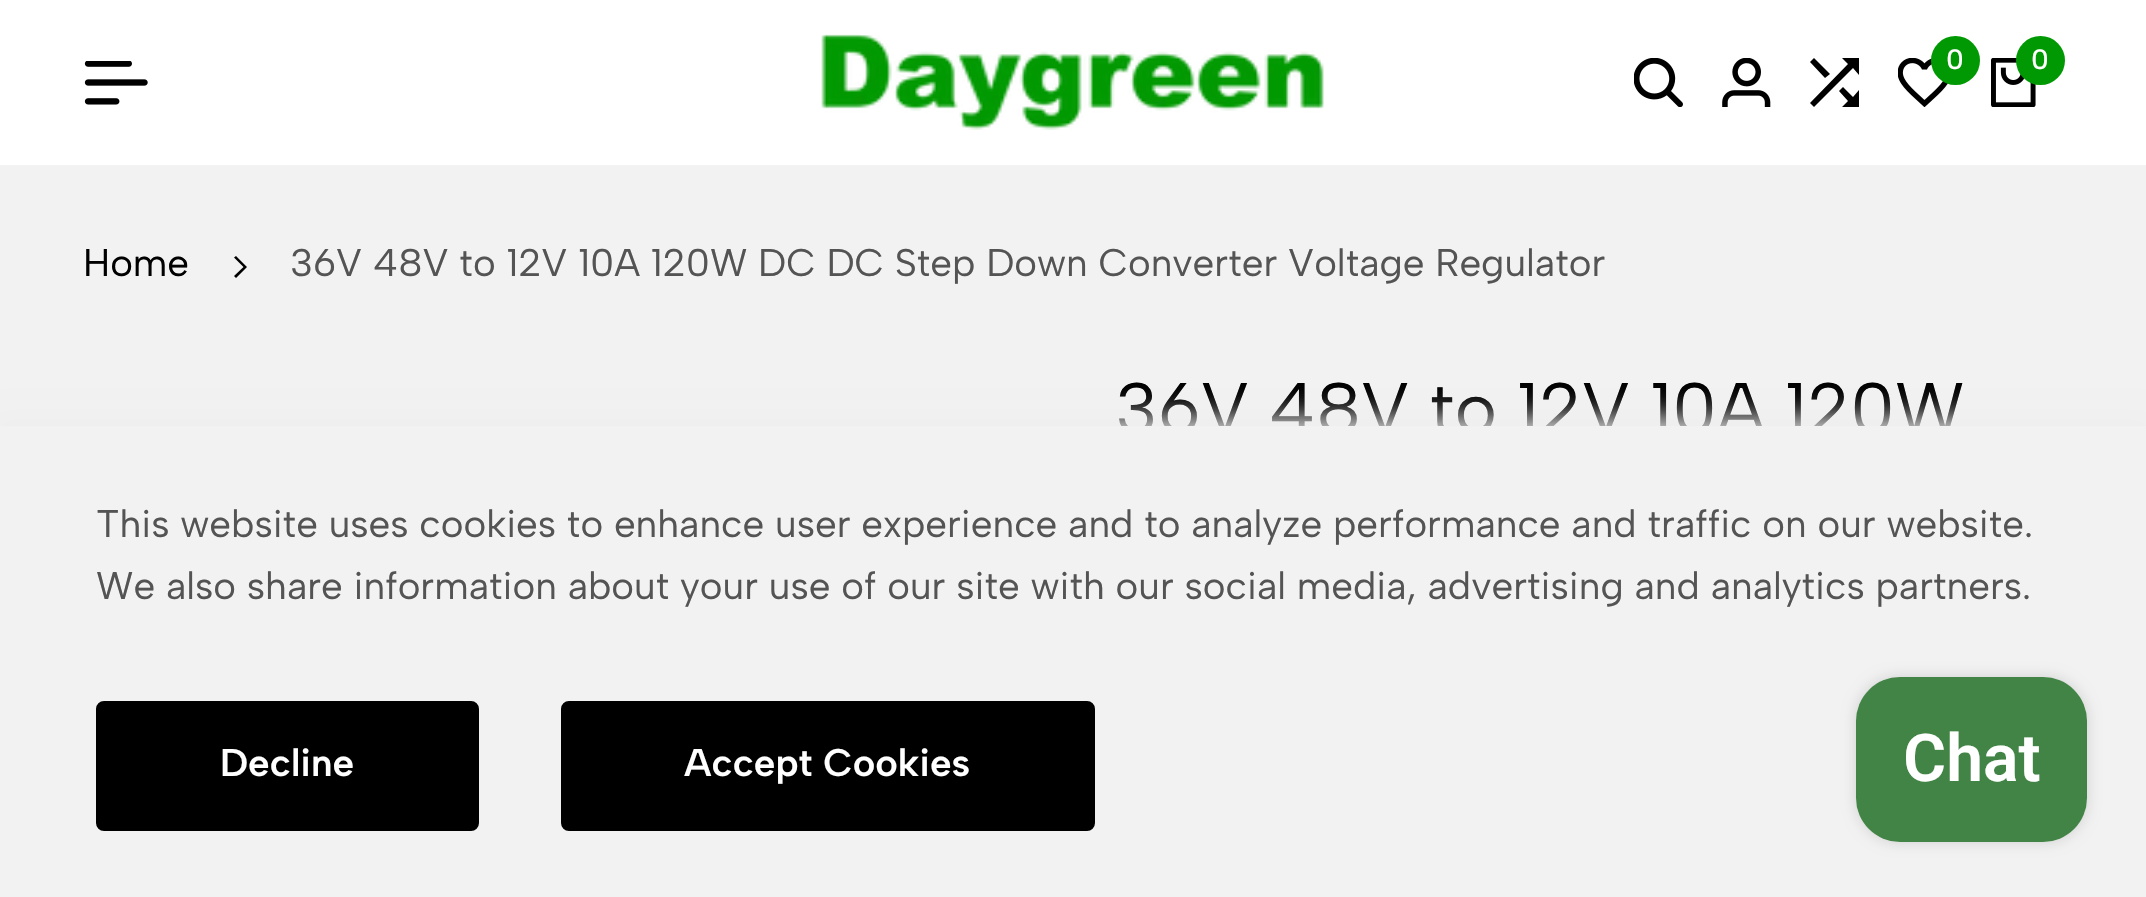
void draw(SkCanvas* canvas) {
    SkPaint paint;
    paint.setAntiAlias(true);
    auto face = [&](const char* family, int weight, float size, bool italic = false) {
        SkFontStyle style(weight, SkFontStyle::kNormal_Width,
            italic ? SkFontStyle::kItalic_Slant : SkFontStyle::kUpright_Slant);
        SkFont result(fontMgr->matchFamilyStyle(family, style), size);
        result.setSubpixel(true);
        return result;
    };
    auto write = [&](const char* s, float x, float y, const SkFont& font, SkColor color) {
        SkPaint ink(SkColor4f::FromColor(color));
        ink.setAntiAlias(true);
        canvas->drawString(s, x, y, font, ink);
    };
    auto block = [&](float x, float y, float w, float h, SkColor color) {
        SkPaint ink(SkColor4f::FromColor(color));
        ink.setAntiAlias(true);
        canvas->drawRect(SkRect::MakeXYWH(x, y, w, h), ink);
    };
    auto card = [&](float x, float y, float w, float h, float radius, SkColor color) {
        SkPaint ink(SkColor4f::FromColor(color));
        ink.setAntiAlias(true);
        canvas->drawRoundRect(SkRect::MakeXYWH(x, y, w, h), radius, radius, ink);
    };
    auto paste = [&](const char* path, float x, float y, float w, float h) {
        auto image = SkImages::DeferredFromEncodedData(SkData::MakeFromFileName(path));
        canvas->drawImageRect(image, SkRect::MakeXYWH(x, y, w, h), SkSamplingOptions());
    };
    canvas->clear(SkColorSetRGB(242, 242, 242));
    block(0, 0, 2146, 165, SK_ColorWHITE);
    paste("pic1.png", 84, 61, 64, 44);
    paste("pic2.png", 821, 34, 503, 96);
    paste("pic3.png", 1634, 58, 49, 49);
    paste("pic4.png", 1722, 58, 49, 49);
    paint.setColor(SK_ColorBLACK);
    canvas->drawPath(SkPathBuilder().moveTo(1830, 74).lineTo(1814, 58).lineTo(1810, 62).lineTo(1825, 78).close().moveTo(1842, 58).lineTo(1848, 64).lineTo(1810, 103).lineTo(1814, 107).lineTo(1853, 68).lineTo(1859, 75).lineTo(1859, 58).close().moveTo(1843, 87).lineTo(1839, 91).lineTo(1848, 101).lineTo(1842, 107).lineTo(1859, 107).lineTo(1859, 90).lineTo(1853, 97).close().detach(), paint);
    paste("pic5.png", 1898, 58, 50, 49);
    paint.setColor(SkColorSetRGB(1, 153, 3));
    canvas->drawCircle(1955.5f, 60.5f, 24.5f, paint);
    auto kFont1 = face("Albert Sans", 500, 28);
    write("0", 1946, 69, kFont1, SK_ColorWHITE);
    paste("pic6.png", 1991, 58, 45, 49);
    canvas->drawCircle(2040.5f, 60.5f, 24.5f, paint);
    write("0", 2031, 69, kFont1, SK_ColorWHITE);
    auto kFont2 = face("Albert Sans", 400, 38.5f);
    write("Home", 83, 276, kFont2, SK_ColorBLACK);
    paint.setColor(SK_ColorBLACK);
    canvas->drawPath(SkPathBuilder().moveTo(236, 256).lineTo(247, 267).lineTo(236, 278).lineTo(234, 276).lineTo(243.5f, 267).lineTo(234, 257.5f).close().detach(), paint);
    write("36V 48V to 12V 10A 120W DC DC Step Down Converter Voltage Regulator", 290, 276, kFont2, SkColorSetRGB(84, 84, 84));
    auto kFont3 = face("Albert Sans", 400, 71.5f);
    write("36V 48V to 12V 10A 120W", 1115, 433, kFont3, SK_ColorBLACK);
    paint.setColor(SkColorSetRGB(238, 238, 238));
    paint.setMaskFilter(SkMaskFilter::MakeBlur(kNormal_SkBlurStyle, 14));
    canvas->drawRect(SkRect::MakeXYWH(-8, 418, 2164, 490), paint);
    paint.setMaskFilter(nullptr);
    block(0, 426, 2146, 471, SkColorSetRGB(242, 242, 242));
    write("This website uses cookies to enhance user experience and to analyze performance and traffic on our website.", 96, 537, kFont2, SkColorSetRGB(84, 84, 84));
    write("We also share information about your use of our site with our social media, advertising and analytics partners.", 96, 599, kFont2, SkColorSetRGB(84, 84, 84));
    paint.setColor(SK_ColorBLACK);
    canvas->drawRoundRect(SkRect::MakeXYWH(97.5f, 702.5f, 380, 127), 6.5f, 6.5f, paint);
    paint.setStyle(SkPaint::kStroke_Style);
    paint.setStrokeWidth(3);
    canvas->drawRoundRect(SkRect::MakeXYWH(97.5f, 702.5f, 380, 127), 6.5f, 6.5f, paint);
    auto kFont4 = face("Albert Sans", 600, 38.5f);
    write("Decline", 220, 776, kFont4, SK_ColorWHITE);
    paint.setStyle(SkPaint::kFill_Style);
    canvas->drawRoundRect(SkRect::MakeXYWH(562.5f, 702.5f, 531, 127), 6.5f, 6.5f, paint);
    paint.setStyle(SkPaint::kStroke_Style);
    canvas->drawRoundRect(SkRect::MakeXYWH(562.5f, 702.5f, 531, 127), 6.5f, 6.5f, paint);
    write("Accept Cookies", 684, 776, kFont4, SK_ColorWHITE);
    paint.setStyle(SkPaint::kFill_Style);
    paint.setColor(SkColorSetARGB(38, 0, 0, 0));
    paint.setMaskFilter(SkMaskFilter::MakeBlur(kNormal_SkBlurStyle, 7));
    canvas->drawRoundRect(SkRect::MakeXYWH(1856, 677, 231, 165), 44, 44, paint);
    paint.setMaskFilter(nullptr);
    card(1856, 677, 231, 165, 44, SkColorSetRGB(66, 132, 69));
    auto kFont5 = face("Roboto", 600, 66);
    write("Chat", 1903, 781, kFont5, SK_ColorWHITE);
}
